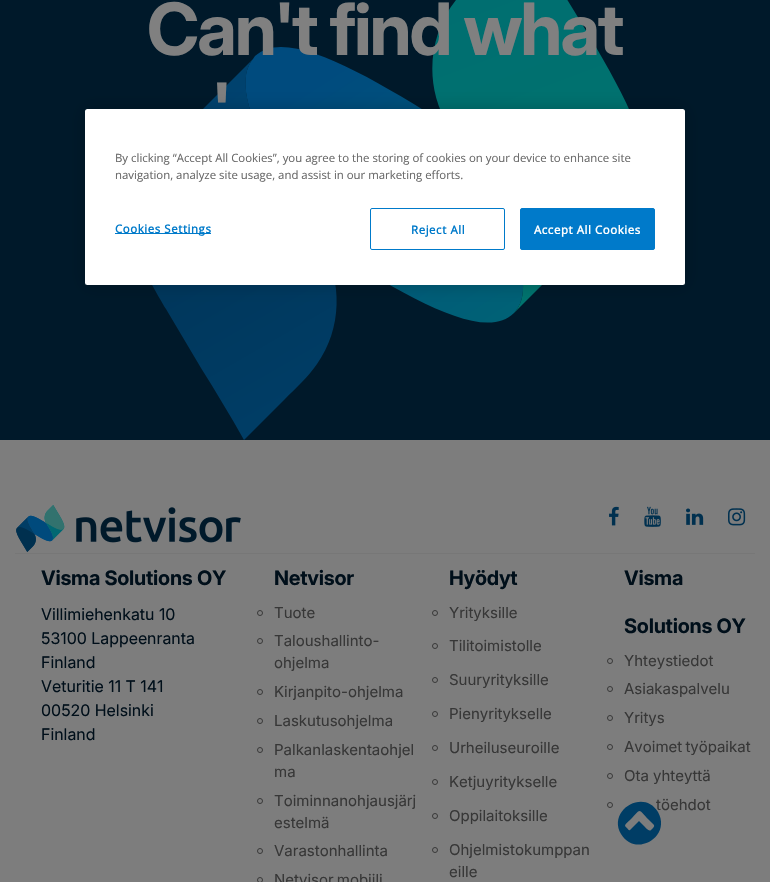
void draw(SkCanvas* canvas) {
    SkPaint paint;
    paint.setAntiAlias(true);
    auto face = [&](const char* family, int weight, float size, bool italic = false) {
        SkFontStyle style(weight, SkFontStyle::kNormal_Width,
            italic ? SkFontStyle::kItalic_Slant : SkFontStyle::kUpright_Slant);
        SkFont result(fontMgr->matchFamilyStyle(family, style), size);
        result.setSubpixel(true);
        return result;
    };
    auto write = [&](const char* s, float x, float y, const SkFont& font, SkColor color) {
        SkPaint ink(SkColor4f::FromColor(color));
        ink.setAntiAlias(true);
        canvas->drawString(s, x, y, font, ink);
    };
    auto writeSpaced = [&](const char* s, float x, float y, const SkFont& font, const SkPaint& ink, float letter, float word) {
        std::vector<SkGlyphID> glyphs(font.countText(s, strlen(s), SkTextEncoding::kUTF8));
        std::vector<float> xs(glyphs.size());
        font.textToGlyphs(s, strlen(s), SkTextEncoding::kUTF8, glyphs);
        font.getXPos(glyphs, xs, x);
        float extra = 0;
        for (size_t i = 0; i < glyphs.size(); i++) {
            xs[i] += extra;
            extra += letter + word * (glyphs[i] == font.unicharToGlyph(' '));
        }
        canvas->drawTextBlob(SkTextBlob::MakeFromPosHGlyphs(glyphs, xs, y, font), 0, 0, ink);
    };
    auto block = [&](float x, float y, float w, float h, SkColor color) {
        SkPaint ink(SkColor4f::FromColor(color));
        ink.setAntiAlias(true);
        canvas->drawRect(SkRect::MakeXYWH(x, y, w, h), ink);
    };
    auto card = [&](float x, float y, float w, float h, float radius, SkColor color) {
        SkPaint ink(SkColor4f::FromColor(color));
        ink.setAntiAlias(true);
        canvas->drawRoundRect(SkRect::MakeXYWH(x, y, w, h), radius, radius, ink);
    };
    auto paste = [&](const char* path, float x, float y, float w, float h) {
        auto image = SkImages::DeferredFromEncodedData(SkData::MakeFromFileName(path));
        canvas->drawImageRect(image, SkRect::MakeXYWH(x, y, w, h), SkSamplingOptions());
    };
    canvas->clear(SkColorSetRGB(0, 25, 42));
    {
        const SkColor colors[] = {SkColorSetRGB(0, 75, 126), SkColorSetRGB(0, 105, 115)};
        const float stops[] = {0, 1};
        const SkPoint ends[] = {{315, 82}, {537, 423}};
        paint.setShader(SkGradientShader::MakeLinear(ends, colors, stops, 2, SkTileMode::kClamp));
        paint.setAlpha(255);
    }
    canvas->drawPath(SkPathBuilder().moveTo(255, 56).cubicTo(262, 50, 271, 47, 281, 47).cubicTo(321, 47, 385, 86, 448, 125).cubicTo(496, 204, 544, 283, 514, 313).cubicTo(483, 344, 403, 294, 323, 245).lineTo(321, 243).lineTo(298, 207).cubicTo(260, 143, 231, 85, 253, 59).close().detach(), paint);
    {
        const SkColor colors[] = {SkColorSetRGB(0, 48, 81), SkColorSetRGB(0, 62, 103)};
        const float stops[] = {0, 1};
        const SkPoint ends[] = {{110, 118}, {293, 435}};
        paint.setShader(SkGradientShader::MakeLinear(ends, colors, stops, 2, SkTileMode::kClamp));
        paint.setAlpha(255);
    }
    canvas->drawPath(SkPathBuilder().moveTo(136, 175).cubicTo(165, 153, 228, 189, 253, 203).cubicTo(259, 206, 319, 242, 321, 244).cubicTo(343, 281, 342, 329, 317, 364).cubicTo(308, 377, 296, 388, 285, 399).lineTo(244, 440).cubicTo(230, 415, 216, 392, 201, 368).lineTo(166, 309).cubicTo(151, 283, 101, 202, 136, 175).close().detach(), paint);
    {
        const SkColor colors[] = {SkColorSetRGB(0, 62, 103), SkColorSetRGB(0, 75, 126)};
        const float stops[] = {0, 1};
        const SkPoint ends[] = {{142, 42}, {323, 274}};
        paint.setShader(SkGradientShader::MakeLinear(ends, colors, stops, 2, SkTileMode::kClamp));
        paint.setAlpha(255);
    }
    canvas->drawPath(SkPathBuilder().moveTo(203, 109).lineTo(253, 59).cubicTo(229, 88, 270, 157, 285, 183).lineTo(321, 243).lineTo(292, 226).cubicTo(263, 208, 171, 148, 136, 175).close().detach(), paint);
    {
        const SkColor colors[] = {SkColorSetRGB(0, 105, 115), SkColorSetRGB(0, 115, 110)};
        const float stops[] = {0, 1};
        const SkPoint ends[] = {{435, -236}, {595, 189}};
        paint.setShader(SkGradientShader::MakeLinear(ends, colors, stops, 2, SkTileMode::kClamp));
        paint.setAlpha(255);
    }
    canvas->drawPath(SkPathBuilder().moveTo(525, -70).cubicTo(538, -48, 553, -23, 568, 1).cubicTo(617, 81, 666, 161, 636, 191).lineTo(635, 192).cubicTo(605, 221, 528, 174, 449, 126).lineTo(448, 125).cubicTo(422, 83, 429, 26, 464, -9).close().detach(), paint);
    {
        const SkColor colors[] = {SkColorSetRGB(0, 105, 115), SkColorSetRGB(0, 115, 110)};
        const float stops[] = {0, 1};
        const SkPoint ends[] = {{517, 183}, {561, 248}};
        paint.setShader(SkGradientShader::MakeLinear(ends, colors, stops, 2, SkTileMode::kClamp));
        paint.setAlpha(255);
    }
    canvas->drawPath(SkPathBuilder().moveTo(514, 313).cubicTo(544, 283, 496, 204, 448, 126).lineTo(449, 126).cubicTo(527, 174, 605, 221, 635, 192).close().detach(), paint);
    auto kFont1 = face("Inter", 700, 72);
    paint.setShader(nullptr);
    paint.setColor(SkColorSetRGB(128, 128, 128));
    writeSpaced("Can't find what", 147, 55, kFont1, paint, -2.2f, 0);
    writeSpaced("'", 212, 135, kFont1, paint, -2.2f, 0);
    paint.setColor(SkColorSetARGB(51, 0, 0, 0));
    paint.setMaskFilter(SkMaskFilter::MakeBlur(kNormal_SkBlurStyle, 9));
    canvas->drawRoundRect(SkRect::MakeXYWH(85, 109, 600, 176), 2.5f, 2.5f, paint);
    paint.setMaskFilter(nullptr);
    card(85, 109, 600, 176, 2.5f, SK_ColorWHITE);
    auto kFont2 = face("Open Sans", 400, 11.4f);
    write("By clicking “Accept All Cookies”, you agree to the storing of cookies on your device to enhance site", 115, 162, kFont2, SkColorSetRGB(105, 105, 105));
    write("navigation, analyze site usage, and assist in our marketing efforts.", 115, 179, kFont2, SkColorSetRGB(105, 105, 105));
    block(115, 233, 96, 1, SkColorSetRGB(0, 122, 202));
    auto kFont3 = face("Open Sans", 700, 11.4f);
    paint.setColor(SkColorSetRGB(0, 122, 202));
    writeSpaced("Cookies Settings", 115, 233, kFont3, paint, 0.6f, 0);
    paint.setStyle(SkPaint::kStroke_Style);
    paint.setStrokeWidth(1);
    canvas->drawRoundRect(SkRect::MakeXYWH(370.5f, 208.5f, 134, 41), 1.5f, 1.5f, paint);
    paint.setStyle(SkPaint::kFill_Style);
    writeSpaced("Reject All", 411, 234, kFont3, paint, 0.6f, 0);
    canvas->drawRoundRect(SkRect::MakeXYWH(520.5f, 208.5f, 134, 41), 1.5f, 1.5f, paint);
    paint.setStyle(SkPaint::kStroke_Style);
    canvas->drawRoundRect(SkRect::MakeXYWH(520.5f, 208.5f, 134, 41), 1.5f, 1.5f, paint);
    paint.setStyle(SkPaint::kFill_Style);
    paint.setColor(SK_ColorWHITE);
    writeSpaced("Accept All Cookies", 534, 234, kFont3, paint, 0.6f, 0);
    block(0, 440, 770, 442, SkColorSetRGB(125, 125, 125));
    paste("pic1.png", 16, 505, 225, 47);
    paste("pic2.png", 609, 506, 10, 20);
    paste("pic3.png", 644, 506, 17, 21);
    paste("pic4.png", 686, 508, 18, 17);
    paste("pic5.png", 728, 508, 18, 18);
    block(15, 553, 740, 1, SkColorSetRGB(119, 119, 119));
    auto kFont4 = face("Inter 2", 700, 20);
    paint.setColor(SkColorSetRGB(0, 15, 26));
    writeSpaced("Visma Solutions OY", 41, 585, kFont4, paint, -0.25f, 0);
    auto kFont5 = face("Inter", 400, 16);
    write("Villimiehenkatu 10", 41, 620, kFont5, SkColorSetRGB(0, 15, 26));
    write("53100 Lappeenranta", 41, 644, kFont5, SkColorSetRGB(0, 15, 26));
    write("Finland", 41, 668, kFont5, SkColorSetRGB(0, 15, 26));
    write("Veturitie 11 T 141", 41, 692, kFont5, SkColorSetRGB(0, 15, 26));
    write("00520 Helsinki", 41, 716, kFont5, SkColorSetRGB(0, 15, 26));
    write("Finland", 41, 740, kFont5, SkColorSetRGB(0, 15, 26));
    writeSpaced("Netvisor", 274, 585, kFont4, paint, -0.25f, 0);
    paint.setStyle(SkPaint::kStroke_Style);
    paint.setColor(SkColorSetRGB(55, 55, 55));
    canvas->drawCircle(260, 613, 2.5f, paint);
    auto kFont6 = face("Inter 2", 400, 15);
    write("Tuote", 274, 618, kFont6, SkColorSetRGB(55, 55, 55));
    canvas->drawCircle(260, 641, 2.5f, paint);
    write("Taloushallinto-", 274, 646, kFont6, SkColorSetRGB(55, 55, 55));
    write("ohjelma", 274, 668, kFont6, SkColorSetRGB(55, 55, 55));
    canvas->drawCircle(260, 692, 2.5f, paint);
    write("Kirjanpito-ohjelma", 274, 697, kFont6, SkColorSetRGB(55, 55, 55));
    canvas->drawCircle(260, 721, 2.5f, paint);
    write("Laskutusohjelma", 274, 726, kFont6, SkColorSetRGB(55, 55, 55));
    canvas->drawCircle(260, 750, 2.5f, paint);
    write("Palkanlaskentaohjel", 274, 755, kFont6, SkColorSetRGB(55, 55, 55));
    write("ma", 274, 777, kFont6, SkColorSetRGB(55, 55, 55));
    canvas->drawCircle(260, 801, 2.5f, paint);
    write("Toiminnanohjausjärj", 274, 806, kFont6, SkColorSetRGB(55, 55, 55));
    write("estelmä", 274, 828, kFont6, SkColorSetRGB(55, 55, 55));
    canvas->drawCircle(260, 851, 2.5f, paint);
    write("Varastonhallinta", 274, 856, kFont6, SkColorSetRGB(55, 55, 55));
    canvas->drawCircle(260, 880, 2.5f, paint);
    paint.setStyle(SkPaint::kFill_Style);
    writeSpaced("Netvisor mobiili", 274, 885, kFont6, paint, 0, -1);
    paint.setColor(SkColorSetRGB(0, 15, 26));
    writeSpaced("Hyödyt", 449, 585, kFont4, paint, -0.25f, 0);
    paint.setStyle(SkPaint::kStroke_Style);
    paint.setColor(SkColorSetRGB(55, 55, 55));
    canvas->drawCircle(435, 613, 2.5f, paint);
    write("Yrityksille", 449, 618, kFont6, SkColorSetRGB(55, 55, 55));
    canvas->drawCircle(435, 646, 2.5f, paint);
    write("Tilitoimistolle", 449, 651, kFont6, SkColorSetRGB(55, 55, 55));
    canvas->drawCircle(435, 680, 2.5f, paint);
    write("Suuryrityksille", 449, 685, kFont6, SkColorSetRGB(55, 55, 55));
    canvas->drawCircle(435, 714, 2.5f, paint);
    write("Pienyritykselle", 449, 719, kFont6, SkColorSetRGB(55, 55, 55));
    canvas->drawCircle(435, 748, 2.5f, paint);
    write("Urheiluseuroille", 449, 753, kFont6, SkColorSetRGB(55, 55, 55));
    canvas->drawCircle(435, 782, 2.5f, paint);
    write("Ketjuyritykselle", 449, 787, kFont6, SkColorSetRGB(55, 55, 55));
    canvas->drawCircle(435, 816, 2.5f, paint);
    write("Oppilaitoksille", 449, 821, kFont6, SkColorSetRGB(55, 55, 55));
    canvas->drawCircle(435, 850, 2.5f, paint);
    write("Ohjelmistokumppan", 449, 855, kFont6, SkColorSetRGB(55, 55, 55));
    write("eille", 449, 877, kFont6, SkColorSetRGB(55, 55, 55));
    paint.setStyle(SkPaint::kFill_Style);
    paint.setColor(SkColorSetRGB(0, 15, 26));
    writeSpaced("Visma", 624, 585, kFont4, paint, -0.25f, 0);
    writeSpaced("Solutions OY", 624, 633, kFont4, paint, -0.25f, 0);
    paint.setStyle(SkPaint::kStroke_Style);
    paint.setColor(SkColorSetRGB(55, 55, 55));
    canvas->drawCircle(610, 661, 2.5f, paint);
    write("Yhteystiedot", 624, 666, kFont6, SkColorSetRGB(55, 55, 55));
    canvas->drawCircle(610, 689, 2.5f, paint);
    write("Asiakaspalvelu", 624, 694, kFont6, SkColorSetRGB(55, 55, 55));
    canvas->drawCircle(610, 718, 2.5f, paint);
    write("Yritys", 624, 723, kFont6, SkColorSetRGB(55, 55, 55));
    canvas->drawCircle(610, 747, 2.5f, paint);
    paint.setStyle(SkPaint::kFill_Style);
    writeSpaced("Avoimet työpaikat", 624, 752, kFont6, paint, 0, -1);
    paint.setStyle(SkPaint::kStroke_Style);
    canvas->drawCircle(610, 776, 2.5f, paint);
    write("Ota yhteyttä", 624, 781, kFont6, SkColorSetRGB(55, 55, 55));
    canvas->drawCircle(610, 805, 2.5f, paint);
    write("töehdot", 656, 810, kFont6, SkColorSetRGB(55, 55, 55));
    paint.setStyle(SkPaint::kFill_Style);
    paint.setColor(SkColorSetRGB(0, 61, 101));
    canvas->drawPath(SkPathBuilder().moveTo(651, 830).cubicTo(656, 825, 655, 826, 649, 820).cubicTo(637, 808, 642, 808, 630, 820).cubicTo(626, 824, 623, 825, 627, 828).cubicTo(628, 829, 629, 831, 630, 830).lineTo(639, 821).lineTo(645, 827).cubicTo(646, 828, 649, 832, 651, 830).close().moveTo(658, 812).cubicTo(672, 837, 635, 858, 621, 834).cubicTo(607, 810, 644, 788, 658, 812).close().detach(), paint);
}
